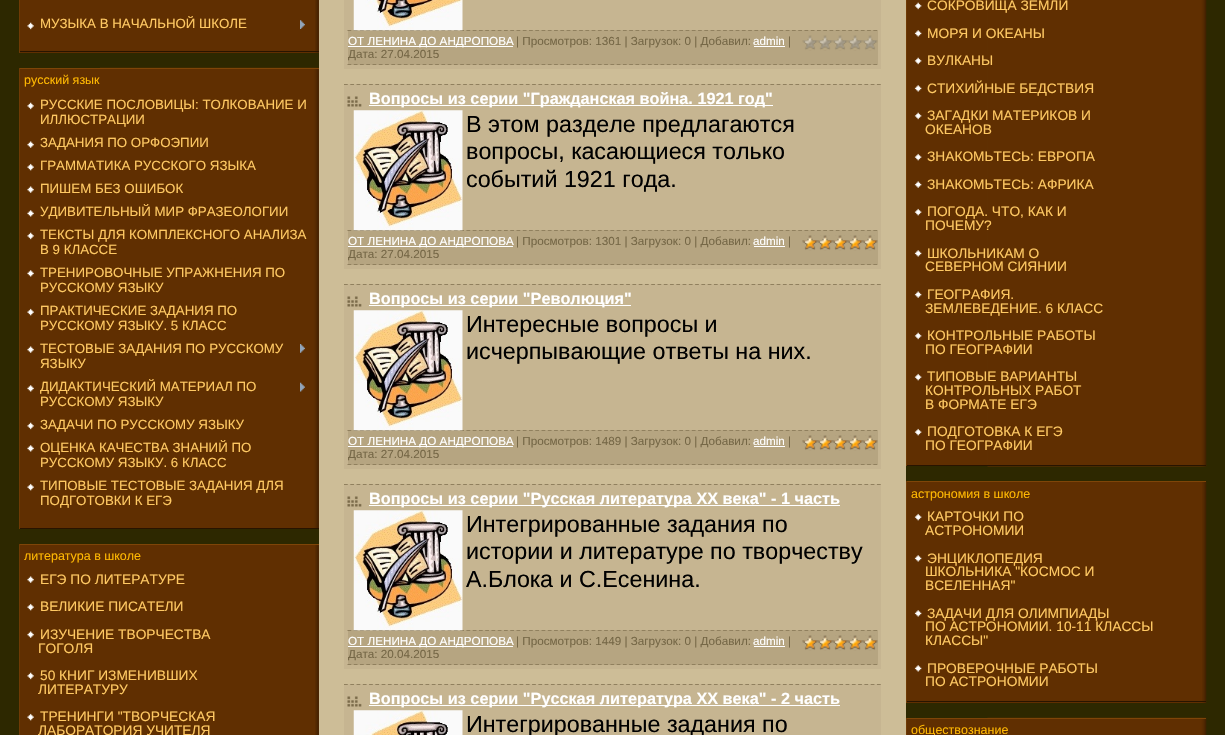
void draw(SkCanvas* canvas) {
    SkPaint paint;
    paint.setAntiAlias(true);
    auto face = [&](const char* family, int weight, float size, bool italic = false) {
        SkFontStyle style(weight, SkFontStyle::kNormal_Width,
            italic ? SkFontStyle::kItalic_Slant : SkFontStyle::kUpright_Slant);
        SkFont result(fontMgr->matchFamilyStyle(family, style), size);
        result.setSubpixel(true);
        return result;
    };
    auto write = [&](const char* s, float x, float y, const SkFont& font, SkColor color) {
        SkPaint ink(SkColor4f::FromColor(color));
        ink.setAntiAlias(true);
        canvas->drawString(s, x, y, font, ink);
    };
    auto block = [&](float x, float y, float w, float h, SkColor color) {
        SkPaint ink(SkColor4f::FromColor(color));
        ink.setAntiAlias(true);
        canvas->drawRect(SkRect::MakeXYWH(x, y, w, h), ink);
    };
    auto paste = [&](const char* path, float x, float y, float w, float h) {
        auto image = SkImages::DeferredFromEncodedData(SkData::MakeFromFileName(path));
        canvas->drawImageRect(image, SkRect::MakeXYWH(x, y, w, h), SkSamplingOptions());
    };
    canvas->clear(SkColorSetRGB(45, 40, 0));
    block(20, 0, 299, 53, SkColorSetRGB(96, 47, 1));
    paste("pic1.png", 315, 0, 4, 53);
    block(19, 51, 300, 1, SkColorSetRGB(40, 20, 0));
    block(19, 0, 1, 53, SkColorSetRGB(111, 58, 5));
    paste("pic2.png", 27, 22, 7, 8);
    auto kFont1 = face("Liberation Sans", 400, 13.3f);
    write("МУЗЫКА В НАЧАЛЬНОЙ ШКОЛЕ", 40, 28, kFont1, SkColorSetRGB(255, 201, 99));
    paste("pic3.png", 300, 20, 5, 9);
    block(20, 69, 299, 459, SkColorSetRGB(96, 47, 1));
    paste("pic4.png", 100, 67, 219, 461);
    block(19, 68, 300, 1, SkColorSetRGB(126, 69, 8));
    block(19, 528, 300, 1, SkColorSetRGB(40, 20, 0));
    block(19, 68, 1, 461, SkColorSetRGB(111, 58, 5));
    auto kFont2 = face("Liberation Sans", 400, 12.5f);
    write("русский язык", 24, 84, kFont2, SkColorSetRGB(255, 184, 2));
    paste("pic2.png", 27, 102, 7, 8);
    write("РУССКИЕ ПОСЛОВИЦЫ: ТОЛКОВАНИЕ И", 40, 109, kFont1, SkColorSetRGB(255, 201, 99));
    write("ИЛЛЮСТРАЦИИ", 40, 124, kFont1, SkColorSetRGB(255, 201, 99));
    paste("pic5.png", 27, 141, 7, 7);
    write("ЗАДАНИЯ ПО ОРФОЭПИИ", 40, 147, kFont1, SkColorSetRGB(255, 201, 99));
    paste("pic6.png", 27, 163, 7, 8);
    write("ГРАММАТИКА РУССКОГО ЯЗЫКА", 40, 170, kFont1, SkColorSetRGB(255, 201, 99));
    paste("pic5.png", 27, 186, 7, 7);
    write("ПИШЕМ БЕЗ ОШИБОК", 40, 193, kFont1, SkColorSetRGB(255, 201, 99));
    paste("pic7.png", 27, 210, 7, 7);
    write("УДИВИТЕЛЬНЫЙ МИР ФРАЗЕОЛОГИИ", 40, 216, kFont1, SkColorSetRGB(255, 201, 99));
    paste("pic2.png", 27, 232, 7, 8);
    write("ТЕКСТЫ ДЛЯ КОМПЛЕКСНОГО АНАЛИЗА", 40, 239, kFont1, SkColorSetRGB(255, 201, 99));
    write("В 9 КЛАССЕ", 40, 254, kFont1, SkColorSetRGB(255, 201, 99));
    paste("pic7.png", 27, 270, 7, 7);
    write("ТРЕНИРОВОЧНЫЕ УПРАЖНЕНИЯ ПО", 40, 277, kFont1, SkColorSetRGB(255, 201, 99));
    write("РУССКОМУ ЯЗЫКУ", 40, 292, kFont1, SkColorSetRGB(255, 201, 99));
    paste("pic6.png", 27, 308, 7, 8);
    write("ПРАКТИЧЕСКИЕ ЗАДАНИЯ ПО", 40, 315, kFont1, SkColorSetRGB(255, 201, 99));
    write("РУССКОМУ ЯЗЫКУ. 5 КЛАСС", 40, 330, kFont1, SkColorSetRGB(255, 201, 99));
    paste("pic5.png", 27, 346, 7, 7);
    write("ТЕСТОВЫЕ ЗАДАНИЯ ПО РУССКОМУ", 40, 353, kFont1, SkColorSetRGB(255, 201, 99));
    paste("pic8.png", 300, 344, 5, 9);
    write("ЯЗЫКУ", 40, 368, kFont1, SkColorSetRGB(255, 201, 99));
    paste("pic7.png", 27, 385, 7, 7);
    write("ДИДАКТИЧЕСКИЙ МАТЕРИАЛ ПО", 40, 391, kFont1, SkColorSetRGB(255, 201, 99));
    paste("pic9.png", 300, 382, 5, 10);
    write("РУССКОМУ ЯЗЫКУ", 40, 406, kFont1, SkColorSetRGB(255, 201, 99));
    paste("pic2.png", 27, 422, 7, 8);
    write("ЗАДАЧИ ПО РУССКОМУ ЯЗЫКУ", 40, 429, kFont1, SkColorSetRGB(255, 201, 99));
    paste("pic7.png", 27, 445, 7, 7);
    write("ОЦЕНКА КАЧЕСТВА ЗНАНИЙ ПО", 40, 452, kFont1, SkColorSetRGB(255, 201, 99));
    write("РУССКОМУ ЯЗЫКУ. 6 КЛАСС", 40, 467, kFont1, SkColorSetRGB(255, 201, 99));
    paste("pic6.png", 27, 483, 7, 8);
    write("ТИПОВЫЕ ТЕСТОВЫЕ ЗАДАНИЯ ДЛЯ", 40, 490, kFont1, SkColorSetRGB(255, 201, 99));
    write("ПОДГОТОВКИ К ЕГЭ", 40, 505, kFont1, SkColorSetRGB(255, 201, 99));
    block(20, 545, 299, 190, SkColorSetRGB(96, 47, 1));
    paste("pic10.png", 315, 545, 4, 190);
    block(19, 544, 300, 1, SkColorSetRGB(126, 69, 8));
    block(19, 544, 1, 191, SkColorSetRGB(111, 58, 5));
    write("литература в школе", 24, 560, kFont2, SkColorSetRGB(255, 184, 2));
    paste("pic5.png", 27, 576, 7, 7);
    auto kFont3 = face("Liberation Sans", 400, 13.75f);
    write("ЕГЭ ПО ЛИТЕРАТУРЕ", 40, 584, kFont3, SkColorSetRGB(255, 201, 99));
    paste("pic6.png", 27, 603, 7, 8);
    write("ВЕЛИКИЕ ПИСАТЕЛИ", 40, 611, kFont3, SkColorSetRGB(255, 201, 99));
    paste("pic5.png", 27, 631, 7, 7);
    write("ИЗУЧЕНИЕ ТВОРЧЕСТВА", 40, 639, kFont3, SkColorSetRGB(255, 201, 99));
    write("ГОГОЛЯ", 38, 653, kFont3, SkColorSetRGB(255, 201, 99));
    paste("pic2.png", 27, 672, 7, 8);
    write("50 КНИГ ИЗМЕНИВШИХ", 40, 680, kFont3, SkColorSetRGB(255, 201, 99));
    write("ЛИТЕРАТУРУ", 38, 694, kFont3, SkColorSetRGB(255, 201, 99));
    paste("pic6.png", 27, 713, 7, 8);
    write("ТРЕНИНГИ \"ТВОРЧЕСКАЯ", 40, 721, kFont3, SkColorSetRGB(255, 201, 99));
    write("ЛАБОРАТОРИЯ УЧИТЕЛЯ", 38, 735, kFont3, SkColorSetRGB(255, 201, 99));
    block(319, 0, 587, 735, SkColorSetRGB(205, 189, 151));
    block(344, 0, 537, 69, SkColorSetRGB(198, 181, 145));
    block(348, 30, 530, 35, SkColorSetRGB(182, 165, 129));
    paint.setStyle(SkPaint::kStroke_Style);
    paint.setStrokeWidth(1.2f);
    paint.setColor(SkColorSetRGB(144, 128, 94));
    paint.setPathEffect(SkDashPathEffect::Make({{3.75f, 2.51f}}, 0));
    canvas->drawPath(SkPathBuilder().moveTo(347.5f, 30.5f).lineTo(877.5f, 30.5f).detach(), paint);
    paint.setPathEffect(nullptr);
    paste("pic11.png", 353, 0, 110, 31);
    paint.setPathEffect(SkDashPathEffect::Make({{3.75f, 2.51f}}, 0));
    canvas->drawPath(SkPathBuilder().moveTo(347.5f, 64.5f).lineTo(877.5f, 64.5f).detach(), paint);
    paint.setPathEffect(nullptr);
    block(348, 46, 165, 1, SK_ColorWHITE);
    auto kFont4 = face("Liberation Sans", 400, 11.7f);
    write("ОТ ЛЕНИНА ДО АНДРОПОВА", 348, 45, kFont4, SK_ColorWHITE);
    write("| Просмотров: 1361 | Загрузок: 0 | Добавил:", 516, 45, kFont4, SkColorSetRGB(117, 103, 70));
    write("admin", 753, 45, kFont4, SK_ColorWHITE);
    block(754, 46, 31, 1, SK_ColorWHITE);
    write("|", 788, 45, kFont4, SkColorSetRGB(117, 103, 70));
    paste("pic12.png", 802, 35, 76, 16);
    write("Дата: 27.04.2015", 348, 58, kFont4, SkColorSetRGB(117, 103, 70));
    block(344, 84, 537, 185, SkColorSetRGB(198, 181, 145));
    paint.setPathEffect(SkDashPathEffect::Make({{3.75f, 2.52f}}, 0));
    canvas->drawPath(SkPathBuilder().moveTo(344, 84.5f).lineTo(881, 84.5f).detach(), paint);
    paint.setPathEffect(nullptr);
    paste("pic13.png", 347, 96, 15, 11);
    block(369, 105, 404, 1, SK_ColorWHITE);
    auto kFont5 = face("Liberation Sans", 700, 16.25f);
    write("Вопросы из серии \"Гражданская война. 1921 год\"", 369, 104, kFont5, SK_ColorWHITE);
    block(348, 230, 530, 35, SkColorSetRGB(182, 165, 129));
    paint.setPathEffect(SkDashPathEffect::Make({{3.75f, 2.51f}}, 0));
    canvas->drawPath(SkPathBuilder().moveTo(347.5f, 230.5f).lineTo(877.5f, 230.5f).detach(), paint);
    paint.setPathEffect(nullptr);
    paste("pic14.png", 353, 110, 110, 121);
    auto kFont6 = face("Liberation Sans", 400, 23.3f);
    write("В этом разделе предлагаются", 466, 132, kFont6, SK_ColorBLACK);
    write("вопросы, касающиеся только", 466, 159, kFont6, SK_ColorBLACK);
    write("событий 1921 года.", 466, 187, kFont6, SK_ColorBLACK);
    paint.setPathEffect(SkDashPathEffect::Make({{3.75f, 2.51f}}, 0));
    canvas->drawPath(SkPathBuilder().moveTo(347.5f, 264.5f).lineTo(877.5f, 264.5f).detach(), paint);
    paint.setPathEffect(nullptr);
    block(348, 246, 165, 1, SK_ColorWHITE);
    write("ОТ ЛЕНИНА ДО АНДРОПОВА", 348, 245, kFont4, SK_ColorWHITE);
    write("| Просмотров: 1301 | Загрузок: 0 | Добавил:", 516, 245, kFont4, SkColorSetRGB(117, 103, 70));
    write("admin", 753, 245, kFont4, SK_ColorWHITE);
    block(754, 246, 31, 1, SK_ColorWHITE);
    write("|", 788, 245, kFont4, SkColorSetRGB(117, 103, 70));
    paste("pic15.png", 802, 235, 76, 16);
    paste("pic16.png", 802, 235, 76, 15);
    write("Дата: 27.04.2015", 348, 258, kFont4, SkColorSetRGB(117, 103, 70));
    block(344, 284, 537, 185, SkColorSetRGB(198, 181, 145));
    paint.setPathEffect(SkDashPathEffect::Make({{3.75f, 2.52f}}, 0));
    canvas->drawPath(SkPathBuilder().moveTo(344, 284.5f).lineTo(881, 284.5f).detach(), paint);
    paint.setPathEffect(nullptr);
    paste("pic13.png", 347, 296, 15, 11);
    block(369, 305, 262, 1, SK_ColorWHITE);
    write("Вопросы из серии \"Революция\"", 369, 304, kFont5, SK_ColorWHITE);
    block(348, 430, 530, 35, SkColorSetRGB(182, 165, 129));
    paint.setPathEffect(SkDashPathEffect::Make({{3.75f, 2.51f}}, 0));
    canvas->drawPath(SkPathBuilder().moveTo(347.5f, 430.5f).lineTo(877.5f, 430.5f).detach(), paint);
    paint.setPathEffect(nullptr);
    paste("pic14.png", 353, 310, 110, 121);
    write("Интересные вопросы и", 466, 332, kFont6, SK_ColorBLACK);
    write("исчерпывающие ответы на них.", 466, 359, kFont6, SK_ColorBLACK);
    paint.setPathEffect(SkDashPathEffect::Make({{3.75f, 2.51f}}, 0));
    canvas->drawPath(SkPathBuilder().moveTo(347.5f, 464.5f).lineTo(877.5f, 464.5f).detach(), paint);
    paint.setPathEffect(nullptr);
    block(348, 446, 165, 1, SK_ColorWHITE);
    write("ОТ ЛЕНИНА ДО АНДРОПОВА", 348, 445, kFont4, SK_ColorWHITE);
    write("| Просмотров: 1489 | Загрузок: 0 | Добавил:", 516, 445, kFont4, SkColorSetRGB(117, 103, 70));
    write("admin", 753, 445, kFont4, SK_ColorWHITE);
    block(754, 446, 31, 1, SK_ColorWHITE);
    write("|", 788, 445, kFont4, SkColorSetRGB(117, 103, 70));
    paste("pic17.png", 802, 435, 76, 16);
    paste("pic18.png", 802, 435, 76, 15);
    write("Дата: 27.04.2015", 348, 458, kFont4, SkColorSetRGB(117, 103, 70));
    block(344, 484, 537, 185, SkColorSetRGB(198, 181, 145));
    paint.setPathEffect(SkDashPathEffect::Make({{3.75f, 2.52f}}, 0));
    canvas->drawPath(SkPathBuilder().moveTo(344, 484.5f).lineTo(881, 484.5f).detach(), paint);
    paint.setPathEffect(nullptr);
    paste("pic13.png", 347, 496, 15, 11);
    block(369, 505, 471, 1, SK_ColorWHITE);
    write("Вопросы из серии \"Русская литература XX века\" - 1 часть", 369, 504, kFont5, SK_ColorWHITE);
    block(348, 630, 530, 35, SkColorSetRGB(182, 165, 129));
    paint.setPathEffect(SkDashPathEffect::Make({{3.75f, 2.51f}}, 0));
    canvas->drawPath(SkPathBuilder().moveTo(347.5f, 630.5f).lineTo(877.5f, 630.5f).detach(), paint);
    paint.setPathEffect(nullptr);
    paste("pic14.png", 353, 510, 110, 121);
    write("Интегрированные задания по", 466, 532, kFont6, SK_ColorBLACK);
    write("истории и литературе по творчеству", 466, 559, kFont6, SK_ColorBLACK);
    write("А.Блока и С.Есенина.", 466, 587, kFont6, SK_ColorBLACK);
    paint.setPathEffect(SkDashPathEffect::Make({{3.75f, 2.51f}}, 0));
    canvas->drawPath(SkPathBuilder().moveTo(347.5f, 664.5f).lineTo(877.5f, 664.5f).detach(), paint);
    paint.setPathEffect(nullptr);
    block(348, 646, 165, 1, SK_ColorWHITE);
    write("ОТ ЛЕНИНА ДО АНДРОПОВА", 348, 645, kFont4, SK_ColorWHITE);
    write("| Просмотров: 1449 | Загрузок: 0 | Добавил:", 516, 645, kFont4, SkColorSetRGB(117, 103, 70));
    write("admin", 753, 645, kFont4, SK_ColorWHITE);
    block(754, 646, 31, 1, SK_ColorWHITE);
    write("|", 788, 645, kFont4, SkColorSetRGB(117, 103, 70));
    paste("pic15.png", 802, 635, 76, 16);
    paste("pic16.png", 802, 635, 76, 15);
    write("Дата: 20.04.2015", 348, 658, kFont4, SkColorSetRGB(117, 103, 70));
    block(344, 684, 537, 51, SkColorSetRGB(198, 181, 145));
    paint.setPathEffect(SkDashPathEffect::Make({{3.75f, 2.52f}}, 0));
    canvas->drawPath(SkPathBuilder().moveTo(344, 684.5f).lineTo(881, 684.5f).detach(), paint);
    paint.setPathEffect(nullptr);
    paste("pic13.png", 347, 696, 15, 11);
    block(369, 705, 471, 1, SK_ColorWHITE);
    write("Вопросы из серии \"Русская литература XX века\" - 2 часть", 369, 704, kFont5, SK_ColorWHITE);
    paste("pic19.png", 353, 710, 110, 25);
    write("Интегрированные задания по", 466, 732, kFont6, SK_ColorBLACK);
    block(907, 0, 81, 465, SkColorSetRGB(96, 47, 1));
    paste("pic20.png", 987, 0, 220, 467);
    block(906, 465, 300, 1, SkColorSetRGB(40, 20, 0));
    block(906, 0, 1, 466, SkColorSetRGB(111, 58, 5));
    paste("pic21.png", 914, 2, 8, 8);
    write("СОКРОВИЩА ЗЕМЛИ", 927, 10, kFont3, SkColorSetRGB(255, 201, 99));
    paste("pic22.png", 914, 30, 8, 7);
    write("МОРЯ И ОКЕАНЫ", 927, 38, kFont3, SkColorSetRGB(255, 201, 99));
    paste("pic21.png", 914, 57, 8, 8);
    write("ВУЛКАНЫ", 927, 65, kFont3, SkColorSetRGB(255, 201, 99));
    paste("pic22.png", 914, 85, 8, 7);
    write("СТИХИЙНЫЕ БЕДСТВИЯ", 927, 93, kFont3, SkColorSetRGB(255, 201, 99));
    paste("pic21.png", 914, 112, 8, 8);
    write("ЗАГАДКИ МАТЕРИКОВ И", 927, 120, kFont3, SkColorSetRGB(255, 201, 99));
    write("ОКЕАНОВ", 925, 134, kFont3, SkColorSetRGB(255, 201, 99));
    paste("pic23.png", 914, 153, 8, 8);
    write("ЗНАКОМЬТЕСЬ: ЕВРОПА", 927, 161, kFont3, SkColorSetRGB(255, 201, 99));
    paste("pic24.png", 914, 181, 8, 7);
    write("ЗНАКОМЬТЕСЬ: АФРИКА", 927, 189, kFont3, SkColorSetRGB(255, 201, 99));
    paste("pic23.png", 914, 208, 8, 8);
    write("ПОГОДА. ЧТО, КАК И", 927, 216, kFont3, SkColorSetRGB(255, 201, 99));
    write("ПОЧЕМУ?", 925, 230, kFont3, SkColorSetRGB(255, 201, 99));
    paste("pic22.png", 914, 250, 8, 7);
    write("ШКОЛЬНИКАМ О", 927, 258, kFont3, SkColorSetRGB(255, 201, 99));
    write("СЕВЕРНОМ СИЯНИИ", 925, 271, kFont3, SkColorSetRGB(255, 201, 99));
    paste("pic24.png", 914, 291, 8, 7);
    write("ГЕОГРАФИЯ.", 927, 299, kFont3, SkColorSetRGB(255, 201, 99));
    write("ЗЕМЛЕВЕДЕНИЕ. 6 КЛАСС", 925, 313, kFont3, SkColorSetRGB(255, 201, 99));
    paste("pic21.png", 914, 332, 8, 8);
    write("КОНТРОЛЬНЫЕ РАБОТЫ", 927, 340, kFont3, SkColorSetRGB(255, 201, 99));
    write("ПО ГЕОГРАФИИ", 925, 354, kFont3, SkColorSetRGB(255, 201, 99));
    paste("pic23.png", 914, 373, 8, 8);
    write("ТИПОВЫЕ ВАРИАНТЫ", 927, 381, kFont3, SkColorSetRGB(255, 201, 99));
    write("КОНТРОЛЬНЫХ РАБОТ", 925, 395, kFont3, SkColorSetRGB(255, 201, 99));
    write("В ФОРМАТЕ ЕГЭ", 925, 409, kFont3, SkColorSetRGB(255, 201, 99));
    paste("pic23.png", 914, 428, 8, 8);
    write("ПОДГОТОВКА К ЕГЭ", 927, 436, kFont3, SkColorSetRGB(255, 201, 99));
    write("ПО ГЕОГРАФИИ", 925, 450, kFont3, SkColorSetRGB(255, 201, 99));
    block(907, 482, 299, 221, SkColorSetRGB(96, 47, 1));
    paste("pic25.png", 1202, 481, 5, 222);
    block(906, 481, 300, 1, SkColorSetRGB(126, 69, 8));
    block(906, 701, 300, 1, SkColorSetRGB(40, 20, 0));
    block(906, 481, 1, 222, SkColorSetRGB(111, 58, 5));
    write("астрономия в школе", 911, 498, kFont2, SkColorSetRGB(255, 184, 2));
    paste("pic23.png", 914, 513, 8, 8);
    write("КАРТОЧКИ ПО", 927, 521, kFont3, SkColorSetRGB(255, 201, 99));
    write("АСТРОНОМИИ", 925, 535, kFont3, SkColorSetRGB(255, 201, 99));
    paste("pic22.png", 914, 555, 8, 7);
    write("ЭНЦИКЛОПЕДИЯ", 927, 563, kFont3, SkColorSetRGB(255, 201, 99));
    write("ШКОЛЬНИКА \"КОСМОС И", 925, 576, kFont3, SkColorSetRGB(255, 201, 99));
    write("ВСЕЛЕННАЯ\"", 925, 590, kFont3, SkColorSetRGB(255, 201, 99));
    paste("pic22.png", 914, 610, 8, 7);
    write("ЗАДАЧИ ДЛЯ ОЛИМПИАДЫ", 927, 618, kFont3, SkColorSetRGB(255, 201, 99));
    write("ПО АСТРОНОМИИ. 10-11 КЛАССЫ", 925, 631, kFont3, SkColorSetRGB(255, 201, 99));
    write("КЛАССЫ\"", 925, 645, kFont3, SkColorSetRGB(255, 201, 99));
    paste("pic22.png", 914, 665, 8, 7);
    write("ПРОВЕРОЧНЫЕ РАБОТЫ", 927, 673, kFont3, SkColorSetRGB(255, 201, 99));
    write("ПО АСТРОНОМИИ", 925, 686, kFont3, SkColorSetRGB(255, 201, 99));
    block(907, 719, 81, 16, SkColorSetRGB(96, 47, 1));
    paste("pic26.png", 987, 717, 220, 18);
    block(906, 718, 300, 1, SkColorSetRGB(126, 69, 8));
    block(906, 718, 1, 17, SkColorSetRGB(111, 58, 5));
    write("обществознание", 911, 734, kFont2, SkColorSetRGB(255, 184, 2));
}
